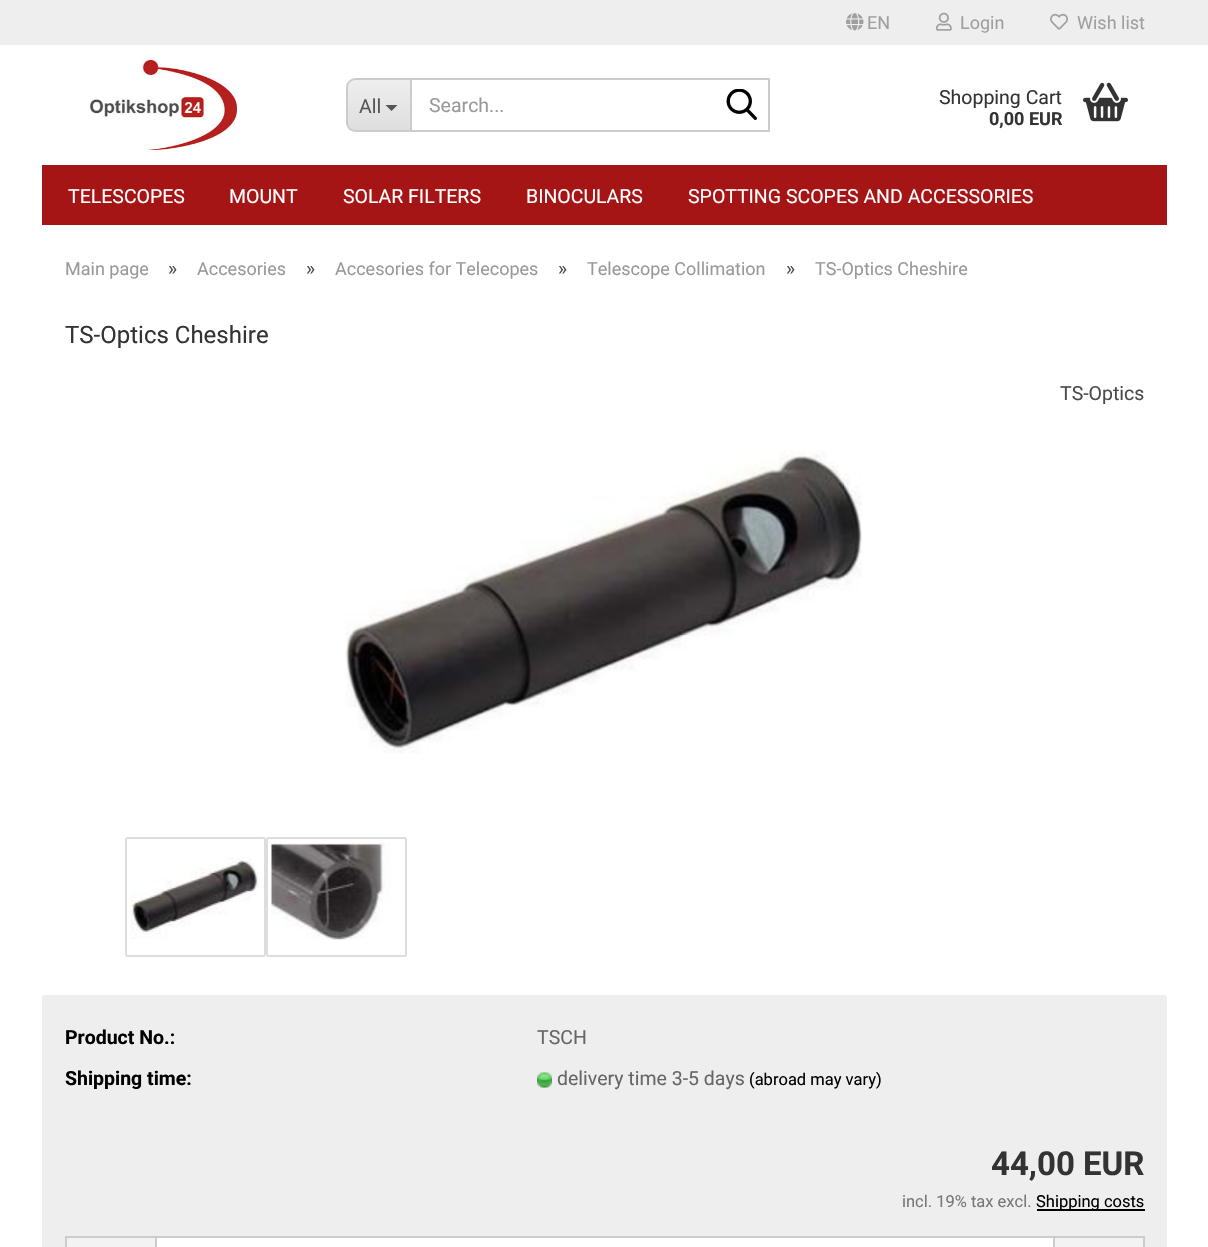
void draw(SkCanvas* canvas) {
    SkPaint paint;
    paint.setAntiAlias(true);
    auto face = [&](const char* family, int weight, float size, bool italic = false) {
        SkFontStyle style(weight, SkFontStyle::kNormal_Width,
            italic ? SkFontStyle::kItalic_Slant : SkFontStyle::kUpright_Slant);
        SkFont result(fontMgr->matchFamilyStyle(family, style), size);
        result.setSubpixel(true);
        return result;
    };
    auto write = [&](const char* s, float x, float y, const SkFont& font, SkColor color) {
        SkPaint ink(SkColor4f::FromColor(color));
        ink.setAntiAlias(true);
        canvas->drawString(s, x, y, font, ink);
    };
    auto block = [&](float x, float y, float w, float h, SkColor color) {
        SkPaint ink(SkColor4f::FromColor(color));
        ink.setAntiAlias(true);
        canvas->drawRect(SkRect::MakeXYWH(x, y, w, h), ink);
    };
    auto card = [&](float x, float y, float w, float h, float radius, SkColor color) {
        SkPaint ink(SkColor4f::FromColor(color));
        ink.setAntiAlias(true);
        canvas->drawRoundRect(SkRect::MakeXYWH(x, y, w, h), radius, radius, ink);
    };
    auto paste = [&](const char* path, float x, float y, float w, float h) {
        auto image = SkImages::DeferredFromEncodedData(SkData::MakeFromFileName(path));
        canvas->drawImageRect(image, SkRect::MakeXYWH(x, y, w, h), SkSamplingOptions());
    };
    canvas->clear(SK_ColorWHITE);
    block(0, 0, 1208, 45, SkColorSetRGB(238, 238, 238));
    paste("pic1.png", 846, 13, 18, 18);
    auto kFont1 = face("Roboto", 400, 18);
    write("EN", 867, 29, kFont1, SkColorSetRGB(159, 159, 159));
    paste("pic2.png", 936, 12, 16, 19);
    write("Login", 960, 29, kFont1, SkColorSetRGB(159, 159, 159));
    paste("pic3.png", 1050, 13, 18, 17);
    write("Wish list", 1077, 29, kFont1, SkColorSetRGB(159, 159, 159));
    paste("pic4.png", 89, 60, 148, 90);
    canvas->save();
    canvas->clipPath(SkPathBuilder().moveTo(356, 78).lineTo(410, 78).lineTo(410, 132).lineTo(356, 132).cubicTo(351, 132, 347, 128, 347, 123).lineTo(347, 87).cubicTo(347, 82, 351, 78, 356, 78).close().detach(), true);
    {
        const SkColor colors[] = {SkColorSetRGB(238, 238, 238), SkColorSetRGB(222, 222, 222)};
        const float stops[] = {0, 1};
        const SkPoint ends[] = {{379, 80}, {379, 131}};
        paint.setShader(SkGradientShader::MakeLinear(ends, colors, stops, 2, SkTileMode::kClamp));
        paint.setAlpha(255);
    }
    canvas->drawRect(SkRect::MakeXYWH(347, 80, 63, 51), paint);
    canvas->restore();
    paint.setShader(nullptr);
    paint.setColor(SkColorSetRGB(204, 204, 204));
    canvas->drawPath(SkPathBuilder(SkPathFillType::kEvenOdd).moveTo(356, 78).lineTo(410, 78).lineTo(410, 132).lineTo(356, 132).cubicTo(351, 132, 346, 128, 346, 123).lineTo(346, 87).cubicTo(346, 82, 351, 78, 356, 78).close().moveTo(356, 80).lineTo(410, 80).lineTo(410, 130).lineTo(356, 130).cubicTo(351, 130, 348, 127, 348, 123).lineTo(348, 87).cubicTo(348, 83, 351, 80, 356, 80).close().detach(), paint);
    auto kFont2 = face("Roboto", 400, 19.5f);
    write("All", 359, 113, kFont2, SkColorSetRGB(85, 85, 85));
    paint.setColor(SkColorSetRGB(85, 85, 85));
    canvas->drawPath(SkPathBuilder().moveTo(385.5f, 105).lineTo(397.5f, 105).lineTo(391.5f, 111).close().detach(), paint);
    paint.setStyle(SkPaint::kStroke_Style);
    paint.setStrokeWidth(2);
    paint.setColor(SkColorSetRGB(204, 204, 204));
    canvas->drawRect(SkRect::MakeXYWH(411, 79, 358, 52), paint);
    write("Search...", 429, 112, kFont2, SkColorSetRGB(153, 153, 153));
    paste("pic5.png", 726, 89, 31, 31);
    write("Shopping Cart", 939, 104, kFont2, SkColorSetRGB(51, 51, 51));
    auto kFont3 = face("Roboto", 700, 18);
    write("0,00 EUR", 989, 125, kFont3, SkColorSetRGB(51, 51, 51));
    paste("pic6.png", 1083, 82, 45, 40);
    block(42, 165, 1125, 60, SkColorSetRGB(166, 21, 21));
    write("TELESCOPES", 68, 203, kFont2, SK_ColorWHITE);
    write("MOUNT", 229, 203, kFont2, SK_ColorWHITE);
    write("SOLAR FILTERS", 343, 203, kFont2, SK_ColorWHITE);
    write("BINOCULARS", 526, 203, kFont2, SK_ColorWHITE);
    write("SPOTTING SCOPES AND ACCESSORIES", 688, 203, kFont2, SK_ColorWHITE);
    write("Main page", 65, 275, kFont1, SkColorSetRGB(153, 153, 153));
    write("»", 168, 275, kFont2, SkColorSetRGB(74, 74, 74));
    write("Accesories", 197, 275, kFont1, SkColorSetRGB(153, 153, 153));
    write("»", 306, 275, kFont2, SkColorSetRGB(74, 74, 74));
    write("Accesories for Telecopes", 335, 275, kFont1, SkColorSetRGB(153, 153, 153));
    write("»", 558, 275, kFont2, SkColorSetRGB(74, 74, 74));
    write("Telescope Collimation", 587, 275, kFont1, SkColorSetRGB(153, 153, 153));
    write("»", 786, 275, kFont2, SkColorSetRGB(74, 74, 74));
    write("TS-Optics Cheshire", 815, 275, kFont1, SkColorSetRGB(153, 153, 153));
    auto kFont4 = face("Roboto", 400, 24);
    write("TS-Optics Cheshire", 65, 343, kFont4, SkColorSetRGB(51, 51, 51));
    write("TS-Optics", 1060, 400, kFont2, SkColorSetRGB(74, 74, 74));
    paste("pic7.png", 345, 450, 517, 304);
    paint.setColor(SkColorSetRGB(221, 221, 221));
    canvas->drawRoundRect(SkRect::MakeXYWH(126, 838, 139, 118), 2, 2, paint);
    paste("pic8.png", 130, 857, 129, 82);
    canvas->drawRoundRect(SkRect::MakeXYWH(267, 838, 139, 118), 2, 2, paint);
    paste("pic9.png", 271, 843, 120, 97);
    card(42, 995, 1125, 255, 3, SkColorSetRGB(238, 238, 238));
    auto kFont5 = face("Roboto", 700, 19.5f);
    write("Product No.:", 65, 1044, kFont5, SK_ColorBLACK);
    write("TSCH", 537, 1044, kFont2, SkColorSetRGB(102, 102, 102));
    write("Shipping time:", 65, 1085, kFont5, SK_ColorBLACK);
    paste("pic10.png", 537, 1072, 15, 16);
    write("delivery time 3-5 days", 557, 1085, kFont2, SkColorSetRGB(102, 102, 102));
    auto kFont6 = face("Roboto", 400, 16.5f);
    write("(abroad may vary)", 749, 1085, kFont6, SK_ColorBLACK);
    auto kFont7 = face("Roboto", 700, 33);
    write("44,00 EUR", 991, 1175, kFont7, SkColorSetRGB(51, 51, 51));
    write("incl. 19% tax excl.", 902, 1207, kFont6, SkColorSetRGB(119, 119, 119));
    block(1037, 1209, 108, 2, SK_ColorBLACK);
    write("Shipping costs", 1036, 1207, kFont6, SK_ColorBLACK);
    block(67, 1238, 88, 9, SkColorSetRGB(243, 243, 243));
    block(65, 1236, 90, 2, SkColorSetRGB(204, 204, 204));
    block(65, 1236, 2, 11, SkColorSetRGB(204, 204, 204));
    paint.setStyle(SkPaint::kFill_Style);
    paint.setColor(SK_ColorWHITE);
    canvas->drawRect(SkRect::MakeXYWH(156, 1237, 898, 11), paint);
    paint.setStyle(SkPaint::kStroke_Style);
    paint.setColor(SkColorSetRGB(204, 204, 204));
    canvas->drawRect(SkRect::MakeXYWH(156, 1237, 898, 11), paint);
    block(1055, 1238, 88, 9, SkColorSetRGB(243, 243, 243));
    block(1055, 1236, 90, 2, SkColorSetRGB(204, 204, 204));
    block(1143, 1236, 2, 11, SkColorSetRGB(204, 204, 204));
}
